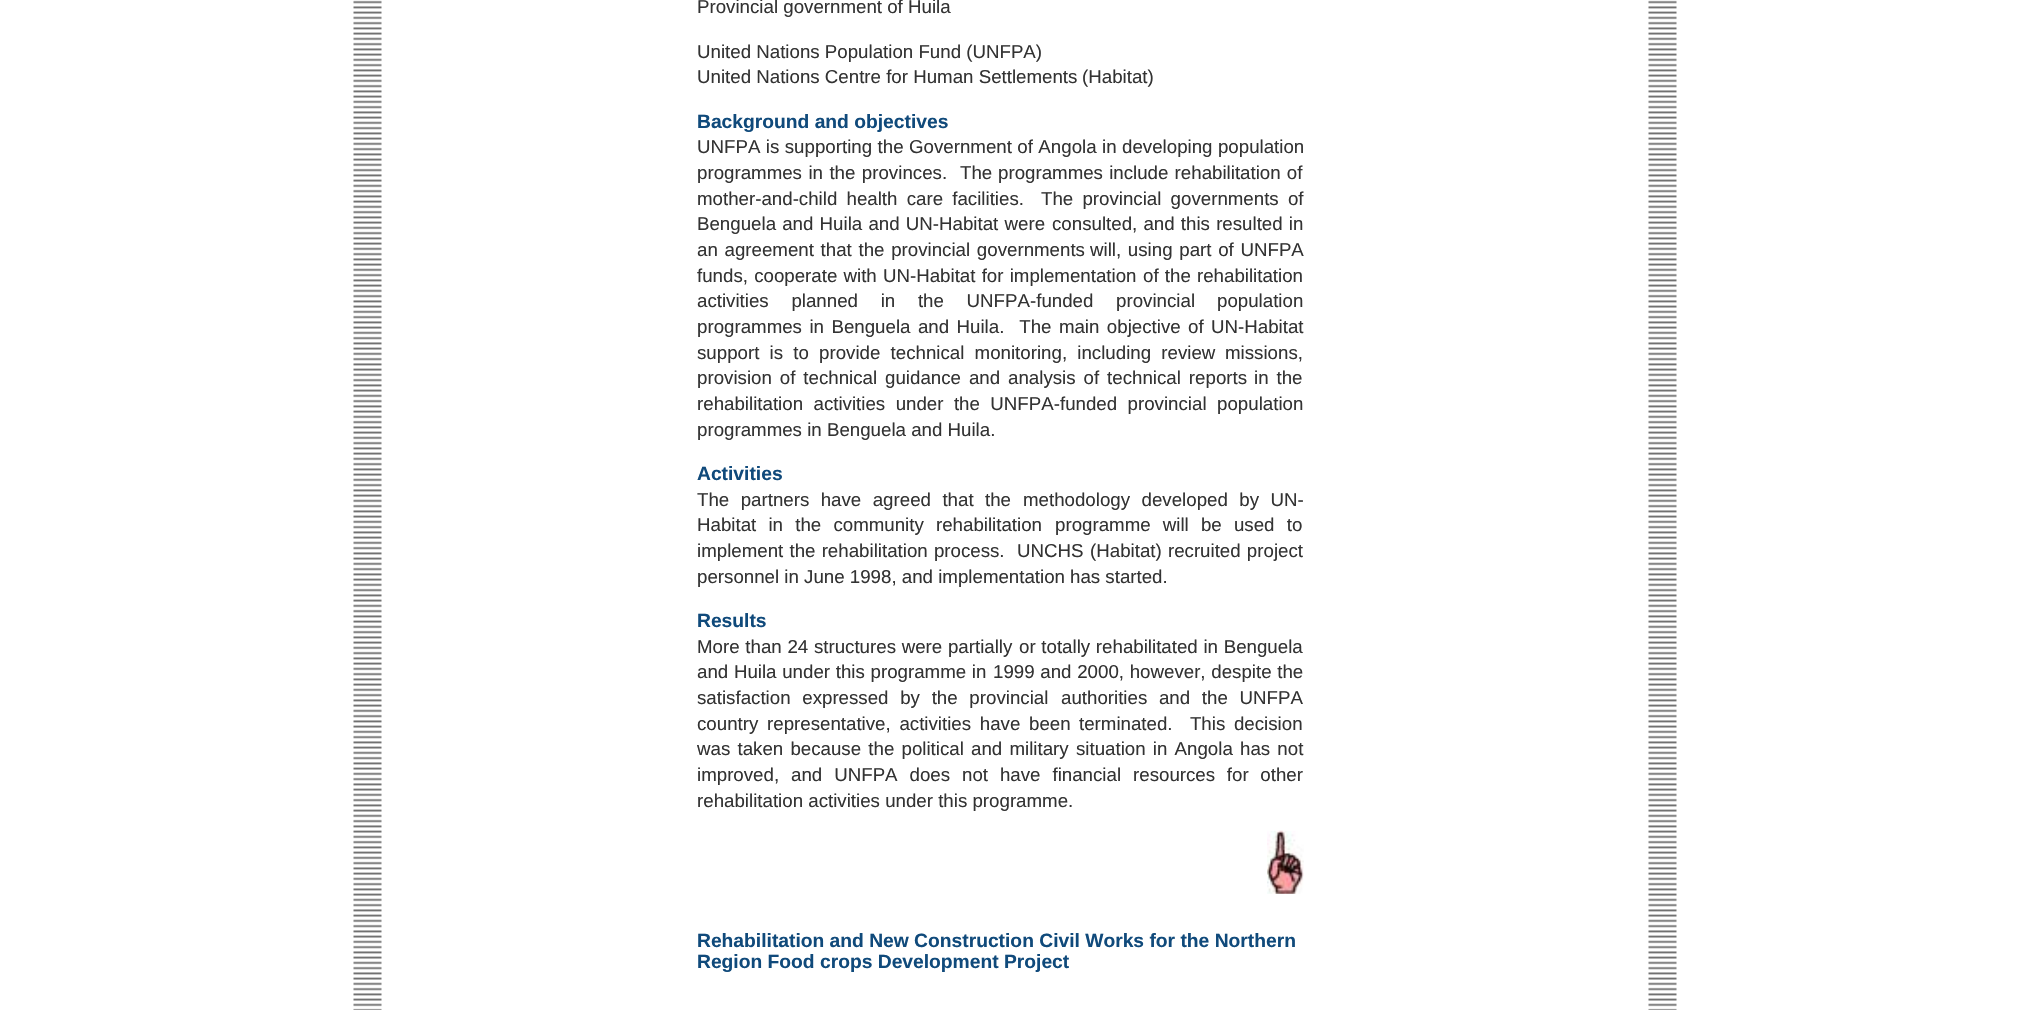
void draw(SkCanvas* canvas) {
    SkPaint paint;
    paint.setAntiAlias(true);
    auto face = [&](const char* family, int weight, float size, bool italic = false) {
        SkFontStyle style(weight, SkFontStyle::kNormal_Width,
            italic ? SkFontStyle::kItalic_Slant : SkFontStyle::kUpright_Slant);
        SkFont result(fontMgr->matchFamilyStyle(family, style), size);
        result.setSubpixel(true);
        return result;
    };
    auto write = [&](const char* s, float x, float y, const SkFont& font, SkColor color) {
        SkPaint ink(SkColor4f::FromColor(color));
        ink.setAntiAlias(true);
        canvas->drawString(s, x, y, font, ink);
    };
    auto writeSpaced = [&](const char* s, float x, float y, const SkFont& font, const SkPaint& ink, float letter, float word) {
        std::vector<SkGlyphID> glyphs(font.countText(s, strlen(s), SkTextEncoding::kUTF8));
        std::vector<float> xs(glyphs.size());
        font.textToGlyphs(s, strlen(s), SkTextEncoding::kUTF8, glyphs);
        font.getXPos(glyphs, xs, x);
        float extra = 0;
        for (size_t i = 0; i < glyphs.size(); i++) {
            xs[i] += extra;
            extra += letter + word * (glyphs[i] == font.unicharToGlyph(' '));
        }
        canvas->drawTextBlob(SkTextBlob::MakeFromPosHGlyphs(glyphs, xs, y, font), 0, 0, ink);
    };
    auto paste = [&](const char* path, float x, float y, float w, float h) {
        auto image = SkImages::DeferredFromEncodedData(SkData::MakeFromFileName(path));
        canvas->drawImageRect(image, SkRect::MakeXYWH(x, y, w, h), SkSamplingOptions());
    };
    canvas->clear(SK_ColorWHITE);
    paste("pic1.png", 353, 0, 29, 1010);
    auto kFont1 = face("Liberation Sans", 400, 18.7f);
    write("Provincial government of Huila", 697, 13, kFont1, SkColorSetRGB(51, 51, 51));
    write("United Nations Population Fund (UNFPA)", 697, 58, kFont1, SkColorSetRGB(51, 51, 51));
    write("United Nations Centre for Human Settlements", 697, 83, kFont1, SkColorSetRGB(51, 51, 51));
    write("(Habitat)", 1082, 83, kFont1, SkColorSetRGB(51, 51, 51));
    auto kFont2 = face("Liberation Sans", 700, 19.25f);
    write("Background and objectives", 697, 128, kFont2, SkColorSetRGB(16, 74, 123));
    paint.setColor(SkColorSetRGB(51, 51, 51));
    writeSpaced("UNFPA is supporting the Government of Angola in developing population", 697, 153, kFont1, paint, 0, 0.25f);
    writeSpaced("programmes in the provinces.  The", 697, 179, kFont1, paint, 0, 1.25f);
    writeSpaced("programmes include rehabilitation of", 998, 179, kFont1, paint, 0, 1);
    writeSpaced("mother-and-child health care facilities.", 697, 205, kFont1, paint, 0, 4);
    writeSpaced("The provincial governments of", 1041, 205, kFont1, paint, 0, 4);
    writeSpaced("Benguela and Huila and UN-Habitat were", 697, 230, kFont1, paint, 0, 1);
    writeSpaced("consulted, and this resulted in", 1052, 230, kFont1, paint, 0, 1);
    writeSpaced("an agreement that the provincial governments", 697, 256, kFont1, paint, 0, 1.5f);
    writeSpaced("will, using part of UNFPA", 1090, 256, kFont1, paint, 0, 1.5f);
    writeSpaced("funds, cooperate with UN-Habitat for implementation", 697, 282, kFont1, paint, 0, 1);
    writeSpaced("of the rehabilitation", 1143, 282, kFont1, paint, 0, 1);
    writeSpaced("activities planned in the UNFPA-funded provincial", 697, 307, kFont1, paint, 0, 17.5f);
    write("population", 1217, 307, kFont1, SkColorSetRGB(51, 51, 51));
    writeSpaced("programmes in Benguela and Huila.  The main objective of", 697, 333, kFont1, paint, 0, 2.25f);
    write("UN-Habitat", 1211, 333, kFont1, SkColorSetRGB(51, 51, 51));
    writeSpaced("support is to provide technical monitoring, including review", 697, 359, kFont1, paint, 0, 5);
    write("missions,", 1225, 359, kFont1, SkColorSetRGB(51, 51, 51));
    writeSpaced("provision of technical guidance and analysis of technical reports", 697, 384, kFont1, paint, 0, 2.75f);
    writeSpaced("in the", 1254, 384, kFont1, paint, 0, 2.75f);
    writeSpaced("rehabilitation activities under the UNFPA-funded provincial population", 697, 410, kFont1, paint, 0, 5.25f);
    write("programmes in Benguela and Huila.", 697, 436, kFont1, SkColorSetRGB(51, 51, 51));
    write("Activities", 697, 480, kFont2, SkColorSetRGB(16, 74, 123));
    writeSpaced("The partners have agreed that the", 697, 506, kFont1, paint, 0, 6.25f);
    writeSpaced("methodology developed by UN-", 1023, 506, kFont1, paint, 0, 6.25f);
    writeSpaced("Habitat in the community rehabilitation", 697, 531, kFont1, paint, 0, 7);
    writeSpaced("programme will be used to", 1055, 531, kFont1, paint, 0, 7);
    writeSpaced("implement the rehabilitation process.  UNCHS", 697, 557, kFont1, paint, 0, 1);
    writeSpaced("(Habitat) recruited project", 1090, 557, kFont1, paint, 0, 1);
    write("personnel in June 1998, and implementation", 697, 583, kFont1, SkColorSetRGB(51, 51, 51));
    write("has started.", 1070, 583, kFont1, SkColorSetRGB(51, 51, 51));
    write("Results", 697, 627, kFont2, SkColorSetRGB(16, 74, 123));
    writeSpaced("More than 24 structures were partially", 697, 653, kFont1, paint, 0, 0.5f);
    writeSpaced("or totally rehabilitated in Benguela", 1019, 653, kFont1, paint, 0, 0.5f);
    writeSpaced("and Huila under this programme in", 697, 678, kFont1, paint, 0, 0.5f);
    writeSpaced("1999 and 2000, however, despite the", 993, 678, kFont1, paint, 0, 0.5f);
    writeSpaced("satisfaction expressed by the provincial", 697, 704, kFont1, paint, 0, 6.5f);
    writeSpaced("authorities and the UNFPA", 1061, 704, kFont1, paint, 0, 6.5f);
    writeSpaced("country representative, activities have been", 697, 730, kFont1, paint, 0, 3.5f);
    writeSpaced("terminated.  This decision", 1079, 730, kFont1, paint, 0, 3.5f);
    writeSpaced("was taken because the political and military", 697, 755, kFont1, paint, 0, 2);
    writeSpaced("situation in Angola has not", 1076, 755, kFont1, paint, 0, 2);
    writeSpaced("improved, and UNFPA does not have financial", 697, 781, kFont1, paint, 0, 6.75f);
    writeSpaced("resources for other", 1133, 781, kFont1, paint, 0, 6.5f);
    write("rehabilitation activities under this programme.", 697, 807, kFont1, SkColorSetRGB(51, 51, 51));
    paste("pic2.png", 1267, 830, 37, 64);
    write("Rehabilitation and New Construction Civil Works for the Northern", 697, 947, kFont2, SkColorSetRGB(16, 74, 123));
    write("Region Food crops Development Project", 697, 968, kFont2, SkColorSetRGB(16, 74, 123));
    paste("pic3.png", 1648, 0, 29, 1010);
}
